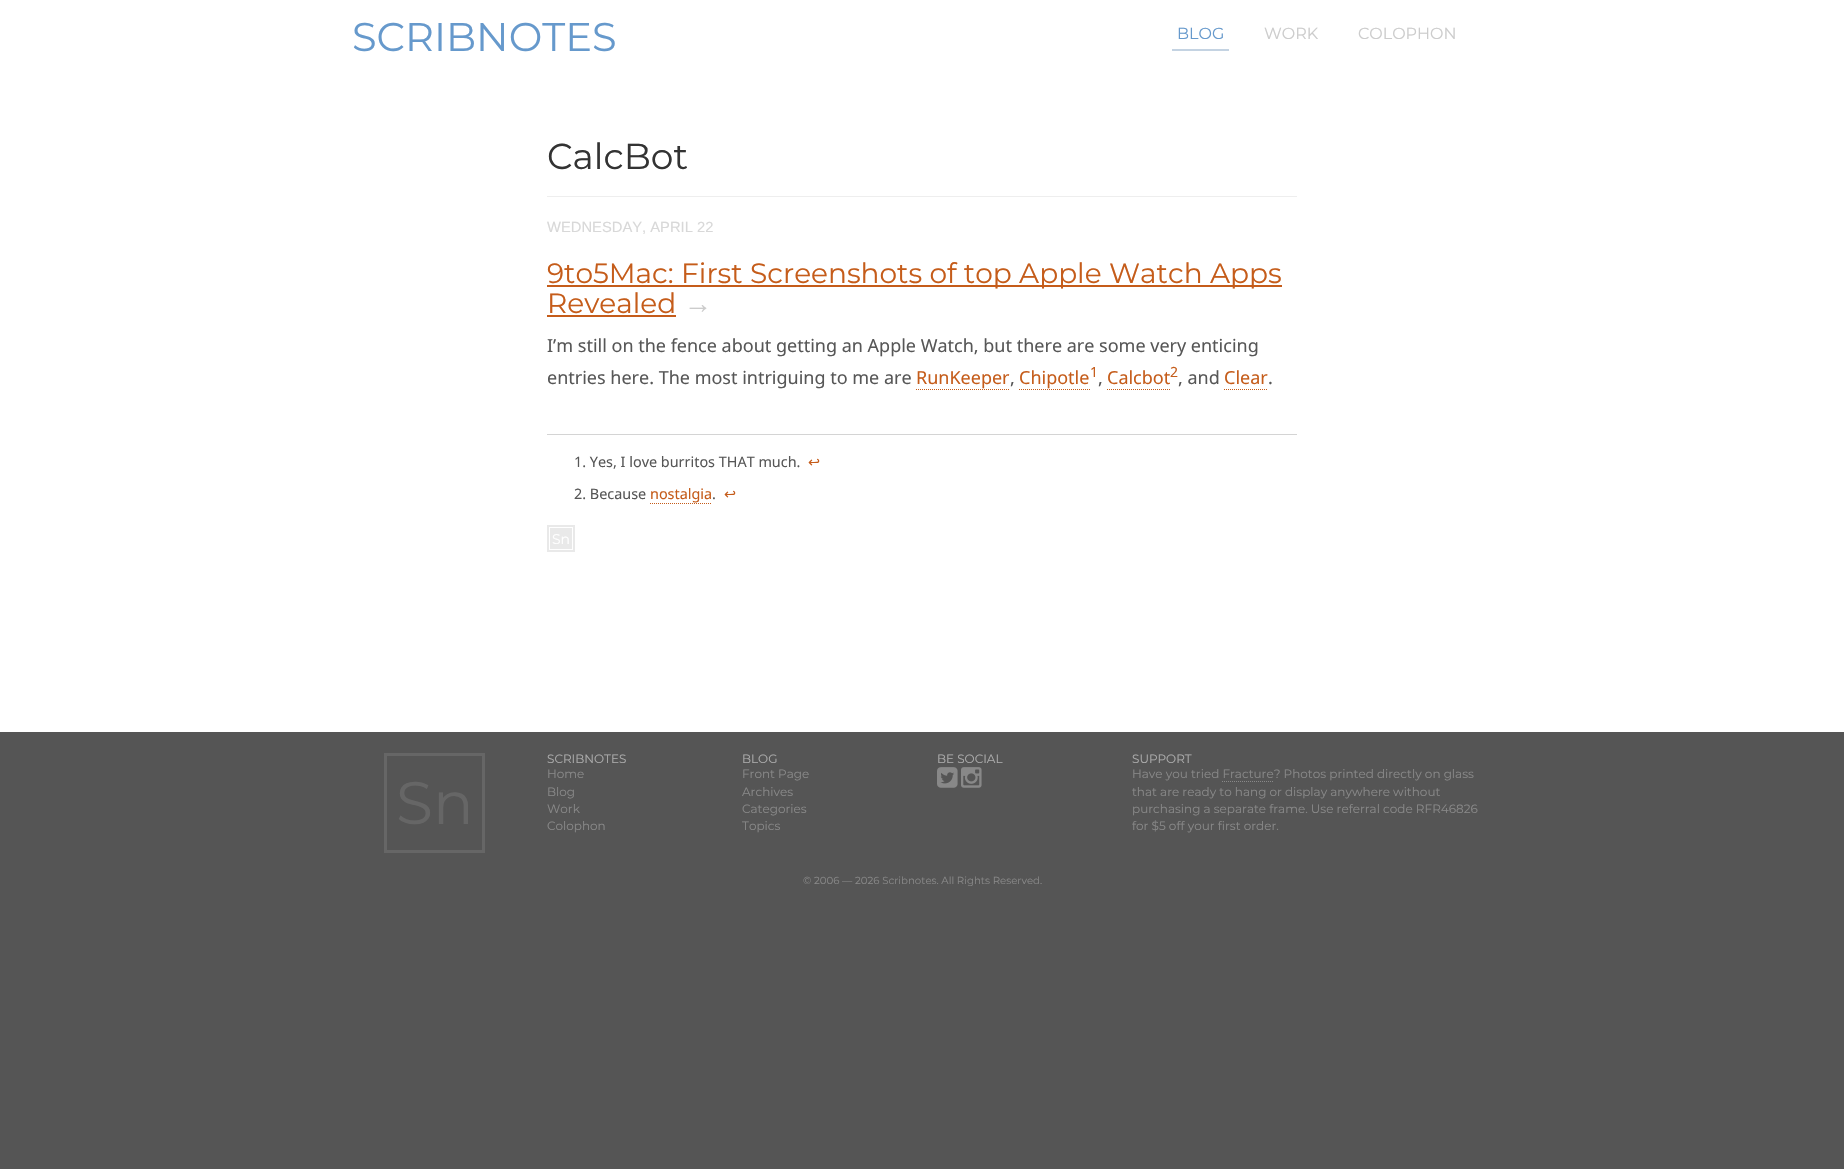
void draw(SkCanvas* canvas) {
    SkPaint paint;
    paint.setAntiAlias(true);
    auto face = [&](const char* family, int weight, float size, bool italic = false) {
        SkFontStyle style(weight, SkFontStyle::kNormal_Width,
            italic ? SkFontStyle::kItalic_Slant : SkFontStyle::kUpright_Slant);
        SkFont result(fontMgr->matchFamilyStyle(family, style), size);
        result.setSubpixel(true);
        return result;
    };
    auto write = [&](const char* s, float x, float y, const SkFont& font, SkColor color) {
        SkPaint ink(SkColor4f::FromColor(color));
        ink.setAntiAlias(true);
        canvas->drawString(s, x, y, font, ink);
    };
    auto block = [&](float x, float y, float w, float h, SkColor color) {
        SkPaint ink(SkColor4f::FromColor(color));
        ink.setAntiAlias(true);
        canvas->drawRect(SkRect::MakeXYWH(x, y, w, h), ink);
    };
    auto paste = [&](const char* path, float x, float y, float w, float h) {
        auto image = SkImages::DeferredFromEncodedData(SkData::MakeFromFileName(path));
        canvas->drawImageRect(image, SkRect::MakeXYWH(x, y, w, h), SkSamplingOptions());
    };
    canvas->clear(SkColorSetRGB(85, 85, 85));
    block(0, 0, 1844, 732, SK_ColorWHITE);
    auto kFont1 = face("Montserrat", 400, 40);
    write("SCRIBNOTES", 352, 51, kFont1, SkColorSetRGB(102, 153, 204));
    block(1172, 49, 57, 2, SkColorSetRGB(196, 211, 226));
    auto kFont2 = face("Montserrat", 400, 16);
    write("BLOG", 1177, 39, kFont2, SkColorSetRGB(102, 153, 204));
    write("WORK", 1264, 39, kFont2, SkColorSetRGB(204, 204, 204));
    write("COLOPHON", 1358, 39, kFont2, SkColorSetRGB(204, 204, 204));
    block(547, 196, 750, 1, SkColorSetRGB(238, 238, 238));
    auto kFont3 = face("Montserrat", 400, 36);
    write("CalcBot", 547, 169, kFont3, SkColorSetRGB(51, 51, 51));
    auto kFont4 = face("Liberation Sans", 400, 14.75f);
    write("WEDNESDAY, APRIL 22", 547, 232, kFont4, SkColorSetRGB(216, 216, 216));
    block(547, 285, 735, 2, SkColorSetRGB(197, 92, 26));
    auto kFont5 = face("Montserrat", 400, 28);
    write("9to5Mac: First Screenshots of top Apple Watch Apps", 547, 283, kFont5, SkColorSetRGB(197, 92, 26));
    write("Revealed", 547, 313, kFont5, SkColorSetRGB(197, 92, 26));
    block(547, 315, 129, 2, SkColorSetRGB(197, 92, 26));
    auto kFont6 = face("Liberation Sans", 400, 28);
    write("→", 684, 313, kFont6, SkColorSetRGB(204, 204, 204));
    auto kFont7 = face("Noto Sans", 400, 18);
    write("I’m still on the fence about getting an Apple Watch, but there are some very enticing", 547, 352, kFont7, SkColorSetRGB(87, 87, 87));
    write("entries here. The most intriguing to me are", 547, 384, kFont7, SkColorSetRGB(87, 87, 87));
    write("RunKeeper", 916, 384, kFont7, SkColorSetRGB(197, 92, 26));
    paint.setStyle(SkPaint::kStroke_Style);
    paint.setStrokeWidth(1);
    paint.setColor(SkColorSetRGB(197, 92, 26));
    paint.setPathEffect(SkDashPathEffect::Make({{1, 1}}, 0));
    canvas->drawPath(SkPathBuilder().moveTo(916, 389.5f).lineTo(1010, 389.5f).detach(), paint);
    paint.setPathEffect(nullptr);
    write(",", 1010, 384, kFont7, SkColorSetRGB(87, 87, 87));
    write("Chipotle", 1019, 384, kFont7, SkColorSetRGB(197, 92, 26));
    paint.setPathEffect(SkDashPathEffect::Make({{1, 1}}, 0));
    canvas->drawPath(SkPathBuilder().moveTo(1019, 389.5f).lineTo(1090, 389.5f).detach(), paint);
    paint.setPathEffect(nullptr);
    auto kFont8 = face("Noto Sans", 400, 14);
    write("1", 1090, 377, kFont8, SkColorSetRGB(197, 92, 26));
    write(",", 1098, 384, kFont7, SkColorSetRGB(87, 87, 87));
    write("Calcbot", 1107, 384, kFont7, SkColorSetRGB(197, 92, 26));
    paint.setPathEffect(SkDashPathEffect::Make({{1, 1}}, 0));
    canvas->drawPath(SkPathBuilder().moveTo(1107, 389.5f).lineTo(1170, 389.5f).detach(), paint);
    paint.setPathEffect(nullptr);
    write("2", 1170, 377, kFont8, SkColorSetRGB(197, 92, 26));
    write(", and", 1178, 384, kFont7, SkColorSetRGB(87, 87, 87));
    write("Clear", 1224, 384, kFont7, SkColorSetRGB(197, 92, 26));
    paint.setPathEffect(SkDashPathEffect::Make({{1, 1}}, 0));
    canvas->drawPath(SkPathBuilder().moveTo(1224, 389.5f).lineTo(1268, 389.5f).detach(), paint);
    paint.setPathEffect(nullptr);
    write(".", 1268, 384, kFont7, SkColorSetRGB(87, 87, 87));
    block(547, 434, 750, 1, SkColorSetRGB(212, 212, 212));
    auto kFont9 = face("Noto Sans", 400, 14.4f);
    write("1. Yes, I love burritos THAT much.", 574, 467, kFont9, SkColorSetRGB(87, 87, 87));
    auto kFont10 = face("DejaVu Sans", 400, 14.4f);
    write("↩", 808, 467, kFont10, SkColorSetRGB(197, 92, 26));
    write("2. Because", 574, 499, kFont9, SkColorSetRGB(87, 87, 87));
    write("nostalgia", 650, 499, kFont9, SkColorSetRGB(197, 92, 26));
    paint.setPathEffect(SkDashPathEffect::Make({{1, 1}}, 0));
    canvas->drawPath(SkPathBuilder().moveTo(650, 503.5f).lineTo(712, 503.5f).detach(), paint);
    paint.setPathEffect(nullptr);
    write("↩", 724, 499, kFont10, SkColorSetRGB(197, 92, 26));
    write(".", 712, 499, kFont9, SkColorSetRGB(87, 87, 87));
    block(547, 525, 28, 27, SkColorSetRGB(233, 233, 233));
    paint.setColor(SK_ColorWHITE);
    canvas->drawRect(SkRect::MakeXYWH(549.5f, 527.5f, 23, 22), paint);
    auto kFont11 = face("Montserrat", 400, 14);
    write("Sn", 552, 544, kFont11, SK_ColorWHITE);
    paint.setStrokeWidth(3);
    paint.setColor(SkColorSetRGB(102, 102, 102));
    canvas->drawRect(SkRect::MakeXYWH(385.5f, 754.5f, 98, 97), paint);
    auto kFont12 = face("Montserrat", 400, 60);
    write("Sn", 396, 824, kFont12, SkColorSetRGB(102, 102, 102));
    auto kFont13 = face("Montserrat", 400, 12);
    write("SCRIBNOTES", 547, 763, kFont13, SkColorSetRGB(172, 172, 172));
    write("Home", 547, 778, kFont13, SkColorSetRGB(136, 136, 136));
    write("Blog", 547, 796, kFont13, SkColorSetRGB(136, 136, 136));
    write("Work", 547, 813, kFont13, SkColorSetRGB(136, 136, 136));
    write("Colophon", 547, 830, kFont13, SkColorSetRGB(136, 136, 136));
    write("BLOG", 742, 763, kFont13, SkColorSetRGB(172, 172, 172));
    write("Front Page", 742, 778, kFont13, SkColorSetRGB(136, 136, 136));
    write("Archives", 742, 796, kFont13, SkColorSetRGB(136, 136, 136));
    write("Categories", 742, 813, kFont13, SkColorSetRGB(136, 136, 136));
    write("Topics", 742, 830, kFont13, SkColorSetRGB(136, 136, 136));
    write("BE SOCIAL", 937, 763, kFont13, SkColorSetRGB(172, 172, 172));
    paste("pic1.png", 937, 767, 21, 21);
    paste("pic2.png", 961, 767, 21, 21);
    write("SUPPORT", 1132, 763, kFont13, SkColorSetRGB(172, 172, 172));
    write("Have you tried Fracture? Photos printed directly on glass", 1132, 778, kFont13, SkColorSetRGB(136, 136, 136));
    paint.setStrokeWidth(1);
    paint.setColor(SkColorSetRGB(136, 136, 136));
    paint.setPathEffect(SkDashPathEffect::Make({{1, 1}}, 0));
    canvas->drawPath(SkPathBuilder().moveTo(1222, 781.5f).lineTo(1274, 781.5f).detach(), paint);
    paint.setPathEffect(nullptr);
    write("that are ready to hang or display anywhere without", 1132, 796, kFont13, SkColorSetRGB(136, 136, 136));
    write("purchasing a separate frame. Use referral code RFR46826", 1132, 813, kFont13, SkColorSetRGB(136, 136, 136));
    write("for $5 off your first order.", 1132, 830, kFont13, SkColorSetRGB(136, 136, 136));
    auto kFont14 = face("Montserrat", 400, 10.2f);
    write("© 2006 — 2026 Scribnotes. All Rights Reserved.", 803, 884, kFont14, SkColorSetRGB(136, 136, 136));
}
